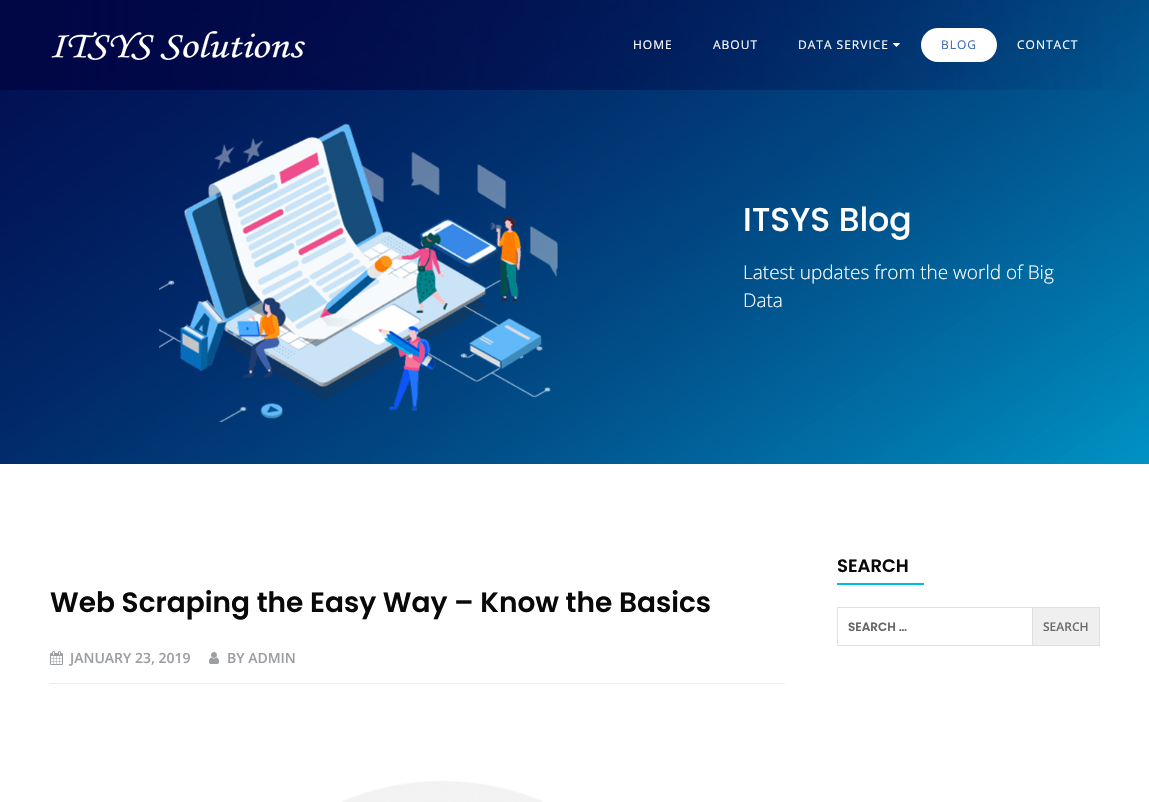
void draw(SkCanvas* canvas) {
    SkPaint paint;
    paint.setAntiAlias(true);
    auto face = [&](const char* family, int weight, float size, bool italic = false) {
        SkFontStyle style(weight, SkFontStyle::kNormal_Width,
            italic ? SkFontStyle::kItalic_Slant : SkFontStyle::kUpright_Slant);
        SkFont result(fontMgr->matchFamilyStyle(family, style), size);
        result.setSubpixel(true);
        return result;
    };
    auto write = [&](const char* s, float x, float y, const SkFont& font, SkColor color) {
        SkPaint ink(SkColor4f::FromColor(color));
        ink.setAntiAlias(true);
        canvas->drawString(s, x, y, font, ink);
    };
    auto writeSpaced = [&](const char* s, float x, float y, const SkFont& font, const SkPaint& ink, float letter, float word) {
        std::vector<SkGlyphID> glyphs(font.countText(s, strlen(s), SkTextEncoding::kUTF8));
        std::vector<float> xs(glyphs.size());
        font.textToGlyphs(s, strlen(s), SkTextEncoding::kUTF8, glyphs);
        font.getXPos(glyphs, xs, x);
        float extra = 0;
        for (size_t i = 0; i < glyphs.size(); i++) {
            xs[i] += extra;
            extra += letter + word * (glyphs[i] == font.unicharToGlyph(' '));
        }
        canvas->drawTextBlob(SkTextBlob::MakeFromPosHGlyphs(glyphs, xs, y, font), 0, 0, ink);
    };
    auto block = [&](float x, float y, float w, float h, SkColor color) {
        SkPaint ink(SkColor4f::FromColor(color));
        ink.setAntiAlias(true);
        canvas->drawRect(SkRect::MakeXYWH(x, y, w, h), ink);
    };
    auto card = [&](float x, float y, float w, float h, float radius, SkColor color) {
        SkPaint ink(SkColor4f::FromColor(color));
        ink.setAntiAlias(true);
        canvas->drawRoundRect(SkRect::MakeXYWH(x, y, w, h), radius, radius, ink);
    };
    auto paste = [&](const char* path, float x, float y, float w, float h) {
        auto image = SkImages::DeferredFromEncodedData(SkData::MakeFromFileName(path));
        canvas->drawImageRect(image, SkRect::MakeXYWH(x, y, w, h), SkSamplingOptions());
    };
    canvas->clear(SK_ColorWHITE);
    paste("pic3.png", 0, 0, 1149, 464);
    paste("pic1.png", 51, 31, 254, 29);
    auto kFont1 = face("Open Sans", 400, 12);
    paint.setColor(SK_ColorWHITE);
    writeSpaced("HOME", 633, 49, kFont1, paint, 1, 0);
    writeSpaced("ABOUT", 713, 49, kFont1, paint, 1, 0);
    writeSpaced("DATA SERVICE", 798, 49, kFont1, paint, 1, 0);
    paste("pic2.png", 893, 43, 7, 4);
    card(921, 28, 76, 34, 17, SK_ColorWHITE);
    paint.setColor(SkColorSetRGB(65, 105, 182));
    writeSpaced("BLOG", 941, 49, kFont1, paint, 1, 0);
    paint.setColor(SK_ColorWHITE);
    writeSpaced("CONTACT", 1017, 49, kFont1, paint, 1, 0);
    paste("pic4.png", 159, 123, 399, 299);
    auto kFont2 = face("Poppins", 500, 33);
    write("ITSYS Blog", 743, 231, kFont2, SK_ColorWHITE);
    auto kFont3 = face("Open Sans", 300, 19);
    write("Latest updates from the world of Big", 743, 279, kFont3, SK_ColorWHITE);
    write("Data", 743, 307, kFont3, SK_ColorWHITE);
    block(50, 683, 735, 1, SkColorSetRGB(238, 238, 238));
    auto kFont4 = face("Poppins", 600, 28);
    write("Web Scraping the Easy Way – Know the Basics", 50, 612, kFont4, SkColorSetRGB(10, 9, 10));
    paste("pic5.png", 50, 651, 13, 14);
    auto kFont5 = face("Open Sans", 600, 14);
    write("JANUARY 23, 2019", 70, 663, kFont5, SkColorSetRGB(155, 158, 163));
    paste("pic6.png", 209, 652, 10, 12);
    write("BY ADMIN", 227, 663, kFont5, SkColorSetRGB(155, 158, 163));
    paste("pic7.png", 341, 781, 202, 21);
    auto kFont6 = face("Poppins", 600, 18);
    write("SEARCH", 837, 572, kFont6, SkColorSetRGB(10, 9, 10));
    block(837, 583, 87, 2, SkColorSetRGB(0, 188, 232));
    paint.setStyle(SkPaint::kStroke_Style);
    paint.setStrokeWidth(1);
    paint.setColor(SkColorSetRGB(224, 224, 224));
    canvas->drawRect(SkRect::MakeXYWH(837.5f, 607.5f, 262, 38), paint);
    auto kFont7 = face("Poppins", 600, 12);
    write("SEARCH …", 848, 631, kFont7, SkColorSetRGB(102, 102, 102));
    paint.setStyle(SkPaint::kFill_Style);
    paint.setColor(SkColorSetRGB(239, 239, 239));
    canvas->drawRect(SkRect::MakeXYWH(1032.5f, 607.5f, 67, 38), paint);
    paint.setStyle(SkPaint::kStroke_Style);
    paint.setColor(SkColorSetRGB(224, 224, 224));
    canvas->drawRect(SkRect::MakeXYWH(1032.5f, 607.5f, 67, 38), paint);
    auto kFont8 = face("Open Sans", 600, 12);
    write("SEARCH", 1043, 631, kFont8, SkColorSetRGB(108, 107, 108));
}
